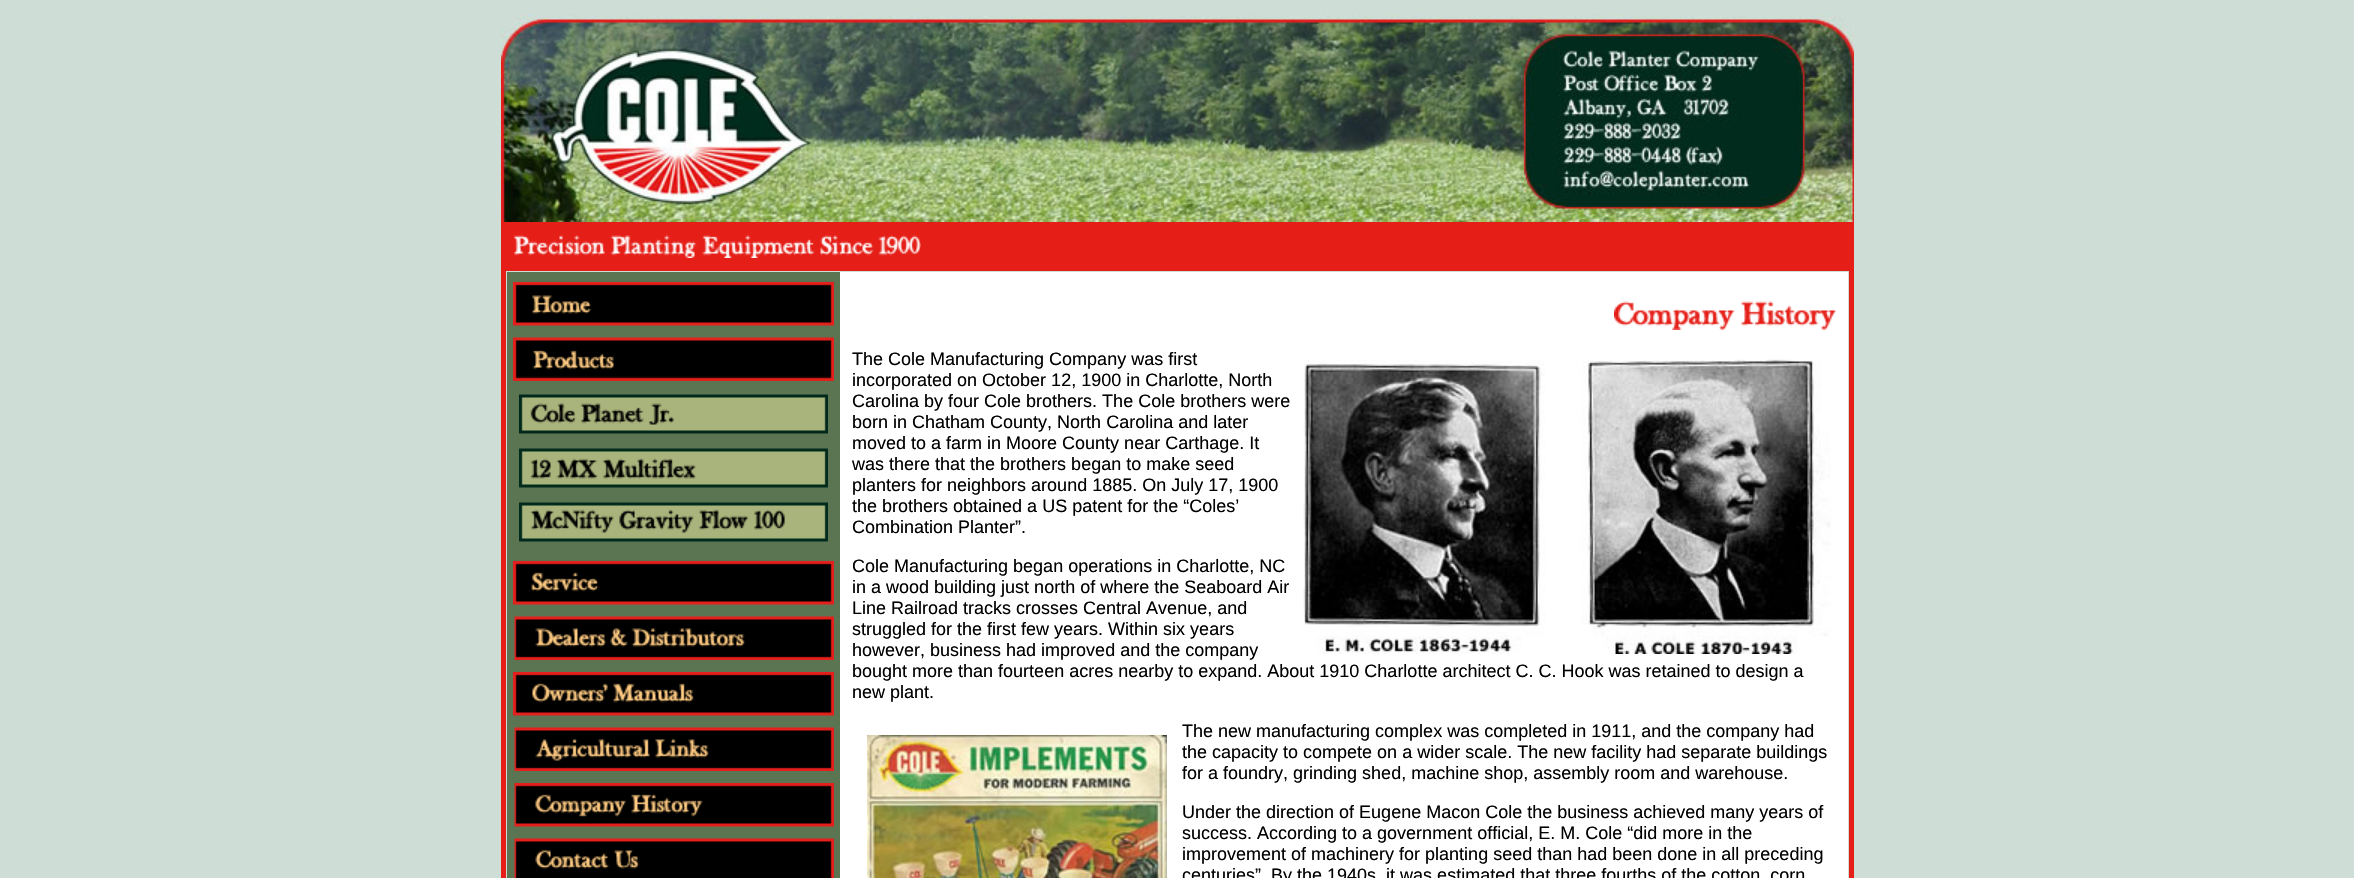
void draw(SkCanvas* canvas) {
    SkPaint paint;
    paint.setAntiAlias(true);
    auto face = [&](const char* family, int weight, float size, bool italic = false) {
        SkFontStyle style(weight, SkFontStyle::kNormal_Width,
            italic ? SkFontStyle::kItalic_Slant : SkFontStyle::kUpright_Slant);
        SkFont result(fontMgr->matchFamilyStyle(family, style), size);
        result.setSubpixel(true);
        return result;
    };
    auto write = [&](const char* s, float x, float y, const SkFont& font, SkColor color) {
        SkPaint ink(SkColor4f::FromColor(color));
        ink.setAntiAlias(true);
        canvas->drawString(s, x, y, font, ink);
    };
    auto block = [&](float x, float y, float w, float h, SkColor color) {
        SkPaint ink(SkColor4f::FromColor(color));
        ink.setAntiAlias(true);
        canvas->drawRect(SkRect::MakeXYWH(x, y, w, h), ink);
    };
    auto paste = [&](const char* path, float x, float y, float w, float h) {
        auto image = SkImages::DeferredFromEncodedData(SkData::MakeFromFileName(path));
        canvas->drawImageRect(image, SkRect::MakeXYWH(x, y, w, h), SkSamplingOptions());
    };
    canvas->clear(SkColorSetRGB(206, 222, 214));
    paste("pic1.png", 501, 15, 1353, 207);
    paint.setStyle(SkPaint::kStroke_Style);
    paint.setStrokeWidth(3);
    paint.setColor(SkColorSetRGB(229, 31, 24));
    canvas->drawRect(SkRect::MakeXYWH(502.5f, 223.5f, 1350, 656), paint);
    block(504, 225, 1347, 44, SkColorSetRGB(229, 31, 24));
    paste("pic2.png", 514, 235, 407, 23);
    paint.setStrokeWidth(2);
    canvas->drawRect(SkRect::MakeXYWH(505, 270, 1345, 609), paint);
    block(840, 272, 1008, 606, SK_ColorWHITE);
    block(507, 272, 333, 606, SkColorSetRGB(91, 117, 83));
    paste("pic3.png", 513, 282, 321, 44);
    paste("pic4.png", 513, 337, 321, 44);
    paste("pic5.png", 519, 394, 309, 40);
    paste("pic6.png", 519, 448, 309, 40);
    paste("pic7.png", 519, 502, 309, 40);
    paste("pic8.png", 513, 561, 321, 44);
    paste("pic9.png", 514, 616, 320, 44);
    paste("pic10.png", 513, 672, 321, 44);
    paste("pic11.png", 514, 727, 320, 44);
    paste("pic12.png", 514, 783, 320, 44);
    paste("pic13.png", 514, 838, 320, 40);
    paste("pic14.png", 1614, 301, 222, 29);
    auto kFont1 = face("Liberation Sans", 400, 18);
    write("The Cole Manufacturing Company was first", 852, 365, kFont1, SK_ColorBLACK);
    paste("pic15.png", 1303, 359, 528, 295);
    write("incorporated on October 12, 1900 in Charlotte, North", 852, 386, kFont1, SK_ColorBLACK);
    write("Carolina by four Cole brothers. The Cole brothers were", 852, 407, kFont1, SK_ColorBLACK);
    write("born in Chatham County, North Carolina and later", 852, 428, kFont1, SK_ColorBLACK);
    write("moved to a farm in Moore County near Carthage. It", 852, 449, kFont1, SK_ColorBLACK);
    write("was there that the brothers began to make seed", 852, 470, kFont1, SK_ColorBLACK);
    write("planters for neighbors around 1885. On July 17, 1900", 852, 491, kFont1, SK_ColorBLACK);
    write("the brothers obtained a US patent for the “Coles’", 852, 512, kFont1, SK_ColorBLACK);
    write("Combination Planter”.", 852, 533, kFont1, SK_ColorBLACK);
    write("Cole Manufacturing began operations in Charlotte, NC", 852, 572, kFont1, SK_ColorBLACK);
    write("in a wood building just north of where the Seaboard Air", 852, 593, kFont1, SK_ColorBLACK);
    write("Line Railroad tracks crosses Central Avenue, and", 852, 614, kFont1, SK_ColorBLACK);
    write("struggled for the first few years. Within six years", 852, 635, kFont1, SK_ColorBLACK);
    write("however, business had improved and the company", 852, 656, kFont1, SK_ColorBLACK);
    write("bought more than fourteen acres nearby to expand. About 1910 Charlotte architect C. C. Hook was retained to design a", 852, 677, kFont1, SK_ColorBLACK);
    write("new plant.", 852, 698, kFont1, SK_ColorBLACK);
    write("The new manufacturing complex was completed in 1911, and the company had", 1182, 737, kFont1, SK_ColorBLACK);
    paste("pic16.png", 867, 735, 300, 143);
    write("the capacity to compete on a wider scale. The new facility had separate buildings", 1182, 758, kFont1, SK_ColorBLACK);
    write("for a foundry, grinding shed, machine shop, assembly room and warehouse.", 1182, 779, kFont1, SK_ColorBLACK);
    write("Under the direction of Eugene Macon Cole the business achieved many years of", 1182, 818, kFont1, SK_ColorBLACK);
    write("success. According to a government official, E. M. Cole “did more in the", 1182, 839, kFont1, SK_ColorBLACK);
    write("improvement of machinery for planting seed than had been done in all preceding", 1182, 860, kFont1, SK_ColorBLACK);
    write("centuries”. By the 1940s, it was estimated that three fourths of the cotton, corn", 1182, 881, kFont1, SK_ColorBLACK);
}
